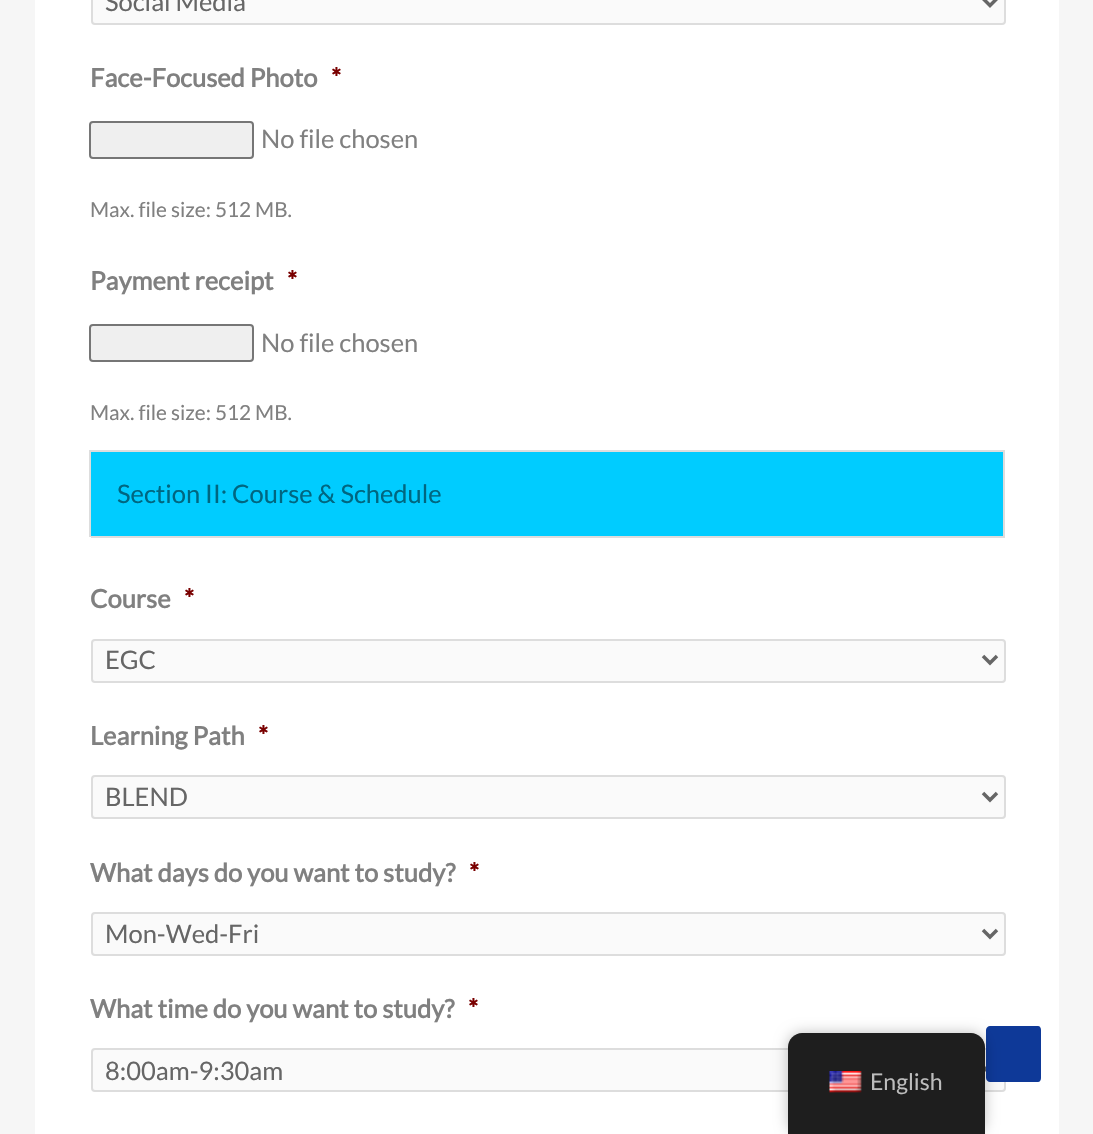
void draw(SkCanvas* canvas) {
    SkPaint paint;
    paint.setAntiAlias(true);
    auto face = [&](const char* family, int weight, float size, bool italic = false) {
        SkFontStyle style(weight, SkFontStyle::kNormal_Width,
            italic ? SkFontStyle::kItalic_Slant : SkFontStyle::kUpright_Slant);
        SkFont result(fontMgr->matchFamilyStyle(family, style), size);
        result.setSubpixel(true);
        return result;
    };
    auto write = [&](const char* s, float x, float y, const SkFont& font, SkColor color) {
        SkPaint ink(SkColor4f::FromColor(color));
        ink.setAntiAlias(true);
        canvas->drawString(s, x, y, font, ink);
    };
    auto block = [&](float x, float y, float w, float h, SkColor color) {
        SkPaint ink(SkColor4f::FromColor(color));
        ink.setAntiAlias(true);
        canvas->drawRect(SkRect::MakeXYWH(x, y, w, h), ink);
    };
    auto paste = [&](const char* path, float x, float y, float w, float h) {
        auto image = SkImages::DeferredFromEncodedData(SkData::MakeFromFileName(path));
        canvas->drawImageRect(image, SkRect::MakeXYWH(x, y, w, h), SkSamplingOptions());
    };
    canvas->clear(SkColorSetRGB(246, 246, 246));
    block(35, 0, 1024, 1134, SK_ColorWHITE);
    paint.setColor(SkColorSetRGB(250, 250, 250));
    canvas->drawRoundRect(SkRect::MakeXYWH(92, -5, 913, 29), 3, 3, paint);
    paint.setStyle(SkPaint::kStroke_Style);
    paint.setStrokeWidth(2);
    paint.setColor(SkColorSetRGB(221, 221, 221));
    canvas->drawRoundRect(SkRect::MakeXYWH(92, -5, 913, 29), 3, 3, paint);
    paint.setStrokeWidth(3.5f);
    paint.setColor(SkColorSetRGB(102, 102, 102));
    canvas->drawPath(SkPathBuilder().moveTo(983, -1.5f).lineTo(990, 5.5f).lineTo(997, -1.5f).detach(), paint);
    auto kFont1 = face("Lato", 400, 25.5f);
    write("Social Media", 105, 11, kFont1, SkColorSetRGB(102, 102, 102));
    auto kFont2 = face("Lato", 700, 25.5f);
    write("Face-Focused Photo", 90, 87, kFont2, SkColorSetRGB(128, 128, 128));
    write("*", 331, 87, kFont2, SkColorSetRGB(121, 0, 0));
    paint.setStyle(SkPaint::kFill_Style);
    paint.setColor(SkColorSetRGB(239, 239, 239));
    canvas->drawRoundRect(SkRect::MakeXYWH(90, 122, 163, 36), 3, 3, paint);
    paint.setStyle(SkPaint::kStroke_Style);
    paint.setStrokeWidth(2);
    paint.setColor(SkColorSetRGB(118, 118, 118));
    canvas->drawRoundRect(SkRect::MakeXYWH(90, 122, 163, 36), 3, 3, paint);
    write("No file chosen", 261, 148, kFont1, SkColorSetRGB(128, 128, 128));
    auto kFont3 = face("Lato", 400, 20.75f);
    write("Max. file size: 512 MB.", 90, 217, kFont3, SkColorSetRGB(128, 128, 128));
    write("Payment receipt", 90, 290, kFont2, SkColorSetRGB(128, 128, 128));
    write("*", 287, 290, kFont2, SkColorSetRGB(121, 0, 0));
    paint.setStyle(SkPaint::kFill_Style);
    paint.setColor(SkColorSetRGB(239, 239, 239));
    canvas->drawRoundRect(SkRect::MakeXYWH(90, 325, 163, 36), 3, 3, paint);
    paint.setStyle(SkPaint::kStroke_Style);
    paint.setColor(SkColorSetRGB(118, 118, 118));
    canvas->drawRoundRect(SkRect::MakeXYWH(90, 325, 163, 36), 3, 3, paint);
    write("No file chosen", 261, 352, kFont1, SkColorSetRGB(128, 128, 128));
    write("Max. file size: 512 MB.", 90, 420, kFont3, SkColorSetRGB(128, 128, 128));
    block(91, 452, 912, 84, SkColorSetRGB(0, 204, 255));
    block(89, 450, 916, 2, SkColorSetRGB(221, 221, 221));
    block(89, 450, 2, 87, SkColorSetRGB(221, 221, 221));
    block(1003, 452, 2, 85, SkColorSetRGB(221, 221, 221));
    block(91, 536, 914, 2, SkColorSetRGB(221, 221, 221));
    write("Section II: Course & Schedule", 117, 503, kFont1, SkColorSetRGB(0, 102, 128));
    write("Course", 90, 608, kFont2, SkColorSetRGB(128, 128, 128));
    write("*", 184, 608, kFont2, SkColorSetRGB(121, 0, 0));
    paint.setStyle(SkPaint::kFill_Style);
    paint.setColor(SkColorSetRGB(250, 250, 250));
    canvas->drawRoundRect(SkRect::MakeXYWH(92, 640, 913, 42), 3, 3, paint);
    paint.setStyle(SkPaint::kStroke_Style);
    paint.setColor(SkColorSetRGB(221, 221, 221));
    canvas->drawRoundRect(SkRect::MakeXYWH(92, 640, 913, 42), 3, 3, paint);
    paint.setStrokeWidth(3.5f);
    paint.setColor(SkColorSetRGB(102, 102, 102));
    canvas->drawPath(SkPathBuilder().moveTo(983, 656).lineTo(990, 663).lineTo(997, 656).detach(), paint);
    write("EGC", 105, 669, kFont1, SkColorSetRGB(102, 102, 102));
    write("Learning Path", 90, 745, kFont2, SkColorSetRGB(128, 128, 128));
    write("*", 258, 745, kFont2, SkColorSetRGB(121, 0, 0));
    paint.setStyle(SkPaint::kFill_Style);
    paint.setColor(SkColorSetRGB(250, 250, 250));
    canvas->drawRoundRect(SkRect::MakeXYWH(92, 776, 913, 42), 3, 3, paint);
    paint.setStyle(SkPaint::kStroke_Style);
    paint.setStrokeWidth(2);
    paint.setColor(SkColorSetRGB(221, 221, 221));
    canvas->drawRoundRect(SkRect::MakeXYWH(92, 776, 913, 42), 3, 3, paint);
    paint.setStrokeWidth(3.5f);
    paint.setColor(SkColorSetRGB(102, 102, 102));
    canvas->drawPath(SkPathBuilder().moveTo(983, 793).lineTo(990, 800).lineTo(997, 793).detach(), paint);
    write("BLEND", 105, 806, kFont1, SkColorSetRGB(102, 102, 102));
    write("What days do you want to study?", 90, 882, kFont2, SkColorSetRGB(128, 128, 128));
    write("*", 469, 882, kFont2, SkColorSetRGB(121, 0, 0));
    paint.setStyle(SkPaint::kFill_Style);
    paint.setColor(SkColorSetRGB(250, 250, 250));
    canvas->drawRoundRect(SkRect::MakeXYWH(92, 913, 913, 42), 3, 3, paint);
    paint.setStyle(SkPaint::kStroke_Style);
    paint.setStrokeWidth(2);
    paint.setColor(SkColorSetRGB(221, 221, 221));
    canvas->drawRoundRect(SkRect::MakeXYWH(92, 913, 913, 42), 3, 3, paint);
    paint.setStrokeWidth(3.5f);
    paint.setColor(SkColorSetRGB(102, 102, 102));
    canvas->drawPath(SkPathBuilder().moveTo(983, 930).lineTo(990, 937).lineTo(997, 930).detach(), paint);
    write("Mon-Wed-Fri", 105, 943, kFont1, SkColorSetRGB(102, 102, 102));
    write("What time do you want to study?", 90, 1018, kFont2, SkColorSetRGB(128, 128, 128));
    write("*", 468, 1018, kFont2, SkColorSetRGB(121, 0, 0));
    paint.setStyle(SkPaint::kFill_Style);
    paint.setColor(SkColorSetRGB(250, 250, 250));
    canvas->drawRoundRect(SkRect::MakeXYWH(92, 1049, 913, 42), 3, 3, paint);
    paint.setStyle(SkPaint::kStroke_Style);
    paint.setStrokeWidth(2);
    paint.setColor(SkColorSetRGB(221, 221, 221));
    canvas->drawRoundRect(SkRect::MakeXYWH(92, 1049, 913, 42), 3, 3, paint);
    paint.setStrokeWidth(3.5f);
    paint.setColor(SkColorSetRGB(102, 102, 102));
    canvas->drawPath(SkPathBuilder().moveTo(983, 1066.5f).lineTo(990, 1073.5f).lineTo(997, 1066.5f).detach(), paint);
    write("8:00am-9:30am", 105, 1080, kFont1, SkColorSetRGB(102, 102, 102));
    paint.setStyle(SkPaint::kFill_Style);
    paint.setColor(SkColorSetRGB(14, 57, 152));
    canvas->drawPath(SkPathBuilder().moveTo(1038, 1082).lineTo(990, 1082).cubicTo(988, 1082, 986, 1080, 986, 1078).lineTo(986, 1030).cubicTo(986, 1028, 988, 1026, 990, 1026).lineTo(1038, 1026).cubicTo(1040, 1026, 1041, 1028, 1041, 1030).lineTo(1041, 1078).cubicTo(1041, 1080, 1040, 1082, 1038, 1082).close().detach(), paint);
    paint.setColor(SkColorSetARGB(64, 0, 0, 0));
    paint.setMaskFilter(SkMaskFilter::MakeBlur(kNormal_SkBlurStyle, 7));
    canvas->drawRoundRect(SkRect::MakeXYWH(788, 1033, 197, 101), 14, 14, paint);
    paint.setMaskFilter(nullptr);
    paint.setColor(SkColorSetRGB(30, 30, 30));
    canvas->drawPath(SkPathBuilder().moveTo(802, 1033).lineTo(971, 1033).cubicTo(978.5f, 1033, 985, 1039.5f, 985, 1047).lineTo(985, 1134).lineTo(788, 1134).lineTo(788, 1047).cubicTo(788, 1039.5f, 794.5f, 1033, 802, 1033).close().detach(), paint);
    paste("pic1.png", 829, 1071, 33, 22);
    auto kFont4 = face("Lato", 400, 23);
    write("English", 870, 1090, kFont4, SkColorSetRGB(189, 189, 189));
}
